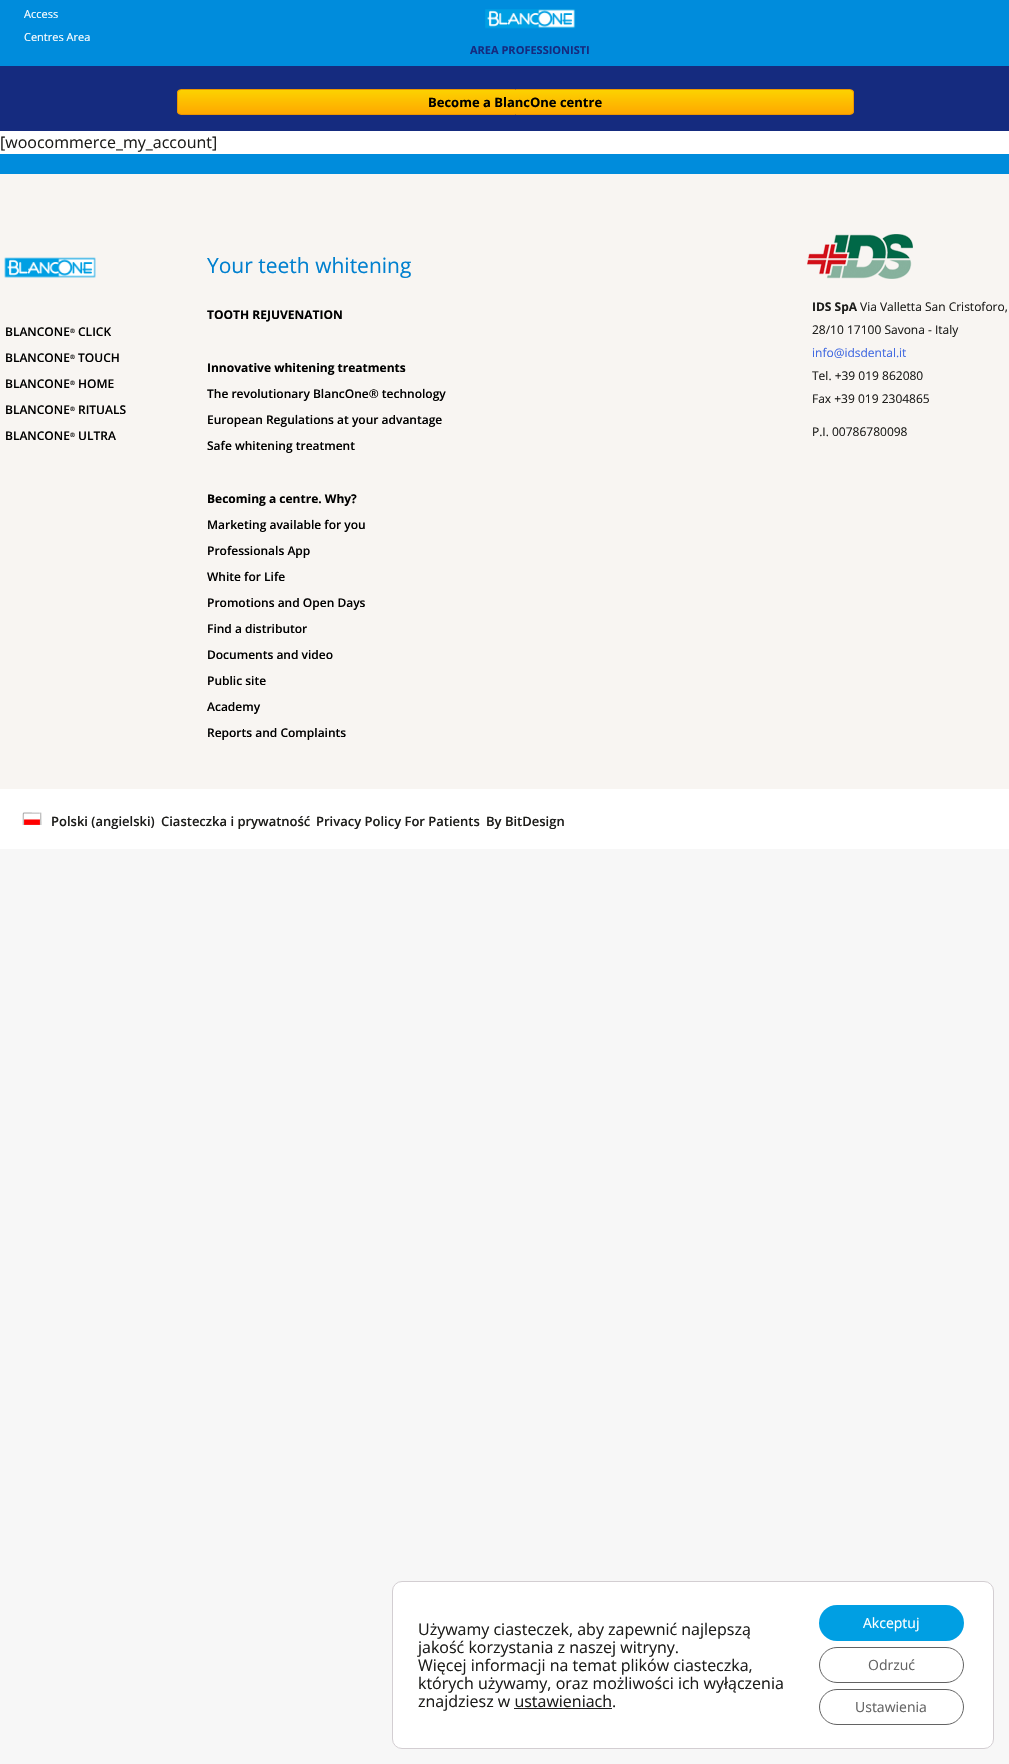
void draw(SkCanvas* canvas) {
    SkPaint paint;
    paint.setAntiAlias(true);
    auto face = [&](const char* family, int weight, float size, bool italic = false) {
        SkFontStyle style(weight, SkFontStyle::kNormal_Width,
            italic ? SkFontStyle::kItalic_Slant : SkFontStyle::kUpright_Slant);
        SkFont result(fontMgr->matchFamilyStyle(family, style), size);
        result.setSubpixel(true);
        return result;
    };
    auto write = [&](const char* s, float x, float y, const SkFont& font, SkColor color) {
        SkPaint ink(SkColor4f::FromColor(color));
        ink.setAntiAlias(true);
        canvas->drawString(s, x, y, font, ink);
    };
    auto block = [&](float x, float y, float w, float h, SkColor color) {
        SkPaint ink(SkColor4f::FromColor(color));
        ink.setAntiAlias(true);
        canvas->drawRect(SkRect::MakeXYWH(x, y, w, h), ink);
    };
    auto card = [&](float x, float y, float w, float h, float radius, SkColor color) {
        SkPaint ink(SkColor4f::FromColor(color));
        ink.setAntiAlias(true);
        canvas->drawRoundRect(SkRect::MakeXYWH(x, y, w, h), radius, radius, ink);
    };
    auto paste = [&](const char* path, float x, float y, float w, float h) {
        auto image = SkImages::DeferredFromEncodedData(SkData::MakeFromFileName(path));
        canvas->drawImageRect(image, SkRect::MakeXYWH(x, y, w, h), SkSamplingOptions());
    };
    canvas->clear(SkColorSetRGB(247, 247, 247));
    block(0, 0, 1009, 66, SkColorSetRGB(0, 140, 220));
    auto kFont1 = face("Open Sans", 400, 11);
    write("Access", 24, 18, kFont1, SK_ColorWHITE);
    write("Centres Area", 24, 41, kFont1, SK_ColorWHITE);
    paste("pic1.png", 485, 9, 91, 20);
    auto kFont2 = face("Open Sans", 700, 11);
    write("AREA PROFESSIONISTI", 470, 54, kFont2, SkColorSetRGB(21, 43, 127));
    block(0, 66, 1009, 65, SkColorSetRGB(21, 43, 127));
    canvas->save();
    canvas->clipPath(SkPathBuilder().moveTo(181, 89).lineTo(850, 89).cubicTo(852, 89, 854, 91, 854, 93).lineTo(854, 111).cubicTo(854, 113, 852, 115, 850, 115).lineTo(181, 115).cubicTo(179, 115, 177, 113, 177, 111).lineTo(177, 93).cubicTo(177, 91, 179, 89, 181, 89).close().detach(), true);
    {
        const SkColor colors[] = {SkColorSetRGB(252, 210, 0), SkColorSetRGB(255, 168, 0)};
        const float stops[] = {0, 1};
        const SkPoint ends[] = {{516, 90}, {516, 114}};
        paint.setShader(SkGradientShader::MakeLinear(ends, colors, stops, 2, SkTileMode::kClamp));
        paint.setAlpha(255);
    }
    canvas->drawRect(SkRect::MakeXYWH(177, 90, 677, 24), paint);
    canvas->restore();
    paint.setStyle(SkPaint::kStroke_Style);
    paint.setStrokeWidth(1);
    paint.setShader(nullptr);
    paint.setColor(SkColorSetRGB(236, 148, 0));
    canvas->drawRoundRect(SkRect::MakeXYWH(177.5f, 89.5f, 676, 25), 3.5f, 3.5f, paint);
    auto kFont3 = face("Open Sans", 700, 13);
    write("Become a BlancOne centre", 428, 107, kFont3, SK_ColorBLACK);
    block(0, 131, 1009, 23, SK_ColorWHITE);
    auto kFont4 = face("Open Sans", 400, 16);
    write("[woocommerce_my_account]", 0, 148, kFont4, SkColorSetRGB(29, 29, 27));
    block(0, 174, 1009, 615, SkColorSetRGB(248, 245, 242));
    block(0, 154, 1009, 20, SkColorSetRGB(0, 140, 220));
    paste("pic2.png", 4, 257, 92, 21);
    auto kFont5 = face("Open Sans", 600, 12);
    write("BLANCONE", 5, 336, kFont5, SK_ColorBLACK);
    auto kFont6 = face("Open Sans", 600, 6);
    write("®", 70, 333, kFont6, SK_ColorBLACK);
    write("CLICK", 78, 336, kFont5, SK_ColorBLACK);
    write("BLANCONE", 5, 362, kFont5, SK_ColorBLACK);
    write("®", 70, 359, kFont6, SK_ColorBLACK);
    write("TOUCH", 78, 362, kFont5, SK_ColorBLACK);
    write("BLANCONE", 5, 388, kFont5, SK_ColorBLACK);
    write("®", 70, 385, kFont6, SK_ColorBLACK);
    write("HOME", 78, 388, kFont5, SK_ColorBLACK);
    write("BLANCONE", 5, 414, kFont5, SK_ColorBLACK);
    write("®", 70, 411, kFont6, SK_ColorBLACK);
    write("RITUALS", 78, 414, kFont5, SK_ColorBLACK);
    write("BLANCONE", 5, 440, kFont5, SK_ColorBLACK);
    write("®", 70, 437, kFont6, SK_ColorBLACK);
    write("ULTRA", 78, 440, kFont5, SK_ColorBLACK);
    auto kFont7 = face("Open Sans", 400, 21);
    write("Your teeth whitening", 207, 273, kFont7, SkColorSetRGB(0, 128, 207));
    auto kFont8 = face("Open Sans", 700, 12);
    write("TOOTH REJUVENATION", 207, 319, kFont8, SK_ColorBLACK);
    write("Innovative whitening treatments", 207, 372, kFont8, SK_ColorBLACK);
    write("The revolutionary BlancOne® technology", 207, 398, kFont5, SK_ColorBLACK);
    write("European Regulations at your advantage", 207, 424, kFont5, SK_ColorBLACK);
    write("Safe whitening treatment", 207, 450, kFont5, SK_ColorBLACK);
    write("Becoming a centre. Why?", 207, 503, kFont8, SK_ColorBLACK);
    write("Marketing available for you", 207, 529, kFont5, SK_ColorBLACK);
    write("Professionals App", 207, 555, kFont5, SK_ColorBLACK);
    write("White for Life", 207, 581, kFont5, SK_ColorBLACK);
    write("Promotions and Open Days", 207, 607, kFont5, SK_ColorBLACK);
    write("Find a distributor", 207, 633, kFont5, SK_ColorBLACK);
    write("Documents and video", 207, 659, kFont5, SK_ColorBLACK);
    write("Public site", 207, 685, kFont5, SK_ColorBLACK);
    write("Academy", 207, 711, kFont5, SK_ColorBLACK);
    write("Reports and Complaints", 207, 737, kFont5, SK_ColorBLACK);
    paste("pic3.png", 807, 234, 106, 45);
    write("IDS SpA", 812, 311, kFont8, SkColorSetRGB(29, 29, 27));
    auto kFont9 = face("Open Sans", 400, 12);
    write("Via Valletta San Cristoforo,", 860, 311, kFont9, SkColorSetRGB(29, 29, 27));
    write("28/10 17100 Savona - Italy", 812, 334, kFont9, SkColorSetRGB(29, 29, 27));
    write("info@idsdental.it", 812, 357, kFont9, SkColorSetRGB(65, 105, 225));
    write("Tel. +39 019 862080", 812, 380, kFont9, SkColorSetRGB(29, 29, 27));
    write("Fax +39 019 2304865", 812, 403, kFont9, SkColorSetRGB(29, 29, 27));
    write("P.I. 00786780098", 812, 436, kFont9, SkColorSetRGB(29, 29, 27));
    block(0, 789, 1009, 60, SK_ColorWHITE);
    paste("pic4.png", 22, 812, 20, 13);
    auto kFont10 = face("Open Sans", 600, 13);
    write("Polski (angielski)", 51, 826, kFont10, SkColorSetRGB(29, 29, 27));
    write("Ciasteczka i prywatność", 161, 826, kFont10, SkColorSetRGB(29, 29, 27));
    write("Privacy Policy For Patients", 316, 826, kFont10, SkColorSetRGB(29, 29, 27));
    write("By BitDesign", 486, 826, kFont10, SkColorSetRGB(29, 29, 27));
    paint.setStyle(SkPaint::kFill_Style);
    paint.setColor(SK_ColorWHITE);
    canvas->drawRoundRect(SkRect::MakeXYWH(392.5f, 1581.5f, 601, 167), 9.5f, 9.5f, paint);
    paint.setStyle(SkPaint::kStroke_Style);
    paint.setColor(SkColorSetRGB(211, 206, 210));
    canvas->drawRoundRect(SkRect::MakeXYWH(392.5f, 1581.5f, 601, 167), 9.5f, 9.5f, paint);
    write("Używamy ciasteczek, aby zapewnić najlepszą", 418, 1635, kFont4, SkColorSetRGB(29, 29, 27));
    write("jakość korzystania z naszej witryny.", 418, 1653, kFont4, SkColorSetRGB(29, 29, 27));
    write("Więcej informacji na temat plików ciasteczka,", 418, 1671, kFont4, SkColorSetRGB(29, 29, 27));
    write("których używamy, oraz możliwości ich wyłączenia", 418, 1689, kFont4, SkColorSetRGB(29, 29, 27));
    write("znajdziesz w ustawieniach.", 418, 1707, kFont4, SkColorSetRGB(29, 29, 27));
    block(514, 1708, 98, 1, SkColorSetRGB(32, 32, 32));
    card(819, 1605, 145, 36, 18, SkColorSetRGB(0, 159, 227));
    auto kFont11 = face("Open Sans", 400, 14);
    write("Akceptuj", 863, 1628, kFont11, SK_ColorWHITE);
    paint.setColor(SkColorSetRGB(99, 99, 99));
    canvas->drawRoundRect(SkRect::MakeXYWH(819.5f, 1647.5f, 144, 35), 17.5f, 17.5f, paint);
    write("Odrzuć", 868, 1670, kFont11, SkColorSetRGB(99, 99, 99));
    canvas->drawRoundRect(SkRect::MakeXYWH(819.5f, 1689.5f, 144, 35), 17.5f, 17.5f, paint);
    write("Ustawienia", 855, 1712, kFont11, SkColorSetRGB(99, 99, 99));
}
